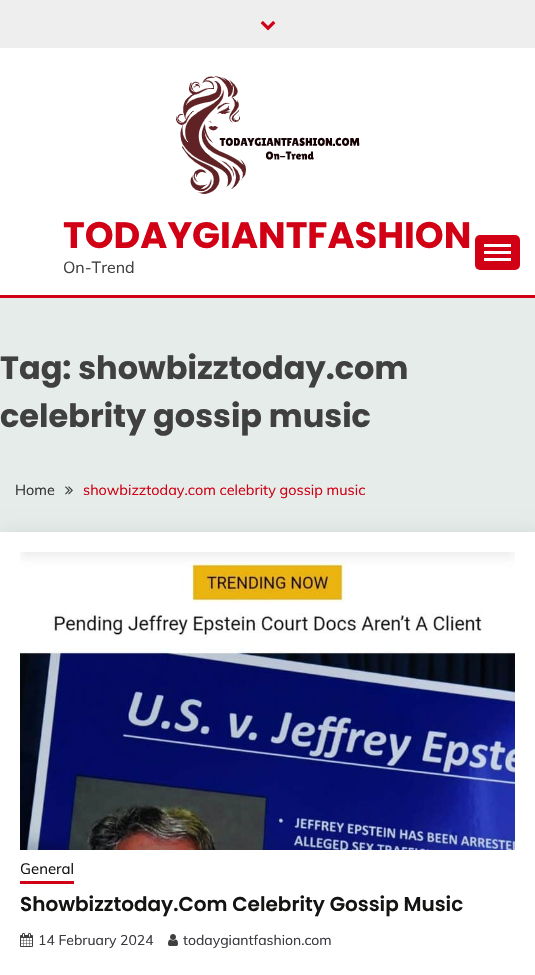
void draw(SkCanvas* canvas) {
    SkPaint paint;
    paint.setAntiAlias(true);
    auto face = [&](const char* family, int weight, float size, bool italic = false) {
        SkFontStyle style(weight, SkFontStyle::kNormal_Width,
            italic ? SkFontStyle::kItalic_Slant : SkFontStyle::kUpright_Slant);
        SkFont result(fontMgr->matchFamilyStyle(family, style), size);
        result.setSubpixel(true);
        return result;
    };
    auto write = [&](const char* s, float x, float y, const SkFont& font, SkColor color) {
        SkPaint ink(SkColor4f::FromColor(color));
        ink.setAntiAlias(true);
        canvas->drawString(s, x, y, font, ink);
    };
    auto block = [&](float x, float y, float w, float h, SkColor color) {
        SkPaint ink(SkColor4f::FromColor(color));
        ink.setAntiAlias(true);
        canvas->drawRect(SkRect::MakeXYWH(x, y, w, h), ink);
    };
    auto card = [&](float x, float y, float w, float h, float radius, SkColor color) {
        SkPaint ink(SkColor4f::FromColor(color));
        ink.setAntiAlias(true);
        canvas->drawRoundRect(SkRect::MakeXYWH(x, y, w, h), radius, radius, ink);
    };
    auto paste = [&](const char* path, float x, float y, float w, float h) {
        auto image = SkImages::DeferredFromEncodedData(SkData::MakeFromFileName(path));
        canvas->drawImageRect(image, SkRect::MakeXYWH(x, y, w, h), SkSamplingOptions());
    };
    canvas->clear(SkColorSetRGB(229, 236, 233));
    block(0, 48, 535, 247, SK_ColorWHITE);
    block(0, 0, 535, 48, SkColorSetRGB(238, 238, 238));
    paste("pic1.png", 260, 21, 16, 10);
    paste("pic2.png", 176, 76, 184, 118);
    auto kFont1 = face("Poppins", 700, 36.75f);
    write("TODAYGIANTFASHION", 63, 248, kFont1, SkColorSetRGB(209, 0, 20));
    auto kFont2 = face("Muli", 400, 16);
    write("On-Trend", 63, 273, kFont2, SkColorSetRGB(64, 64, 64));
    card(475, 235, 45, 35, 5, SkColorSetRGB(209, 0, 20));
    block(484, 244, 27, 3, SK_ColorWHITE);
    block(484, 251, 27, 3, SK_ColorWHITE);
    block(484, 258, 27, 3, SK_ColorWHITE);
    block(0, 295, 535, 3, SkColorSetRGB(209, 0, 20));
    auto kFont3 = face("Poppins", 700, 32);
    write("Tag: showbizztoday.com", 0, 379, kFont3, SkColorSetRGB(64, 64, 64));
    write("celebrity gossip music", 0, 427, kFont3, SkColorSetRGB(64, 64, 64));
    auto kFont4 = face("Muli", 400, 14.4f);
    write("Home", 15, 495, kFont4, SkColorSetRGB(51, 51, 51));
    paste("pic3.png", 65, 486, 8, 9);
    write("showbizztoday.com celebrity gossip music", 83, 495, kFont4, SkColorSetRGB(209, 0, 20));
    paint.setColor(SkColorSetARGB(36, 0, 0, 0));
    paint.setMaskFilter(SkMaskFilter::MakeBlur(kNormal_SkBlurStyle, 10));
    canvas->drawRect(SkRect::MakeXYWH(2, 537, 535, 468), paint);
    paint.setMaskFilter(nullptr);
    block(0, 532, 535, 443, SK_ColorWHITE);
    paste("pic4.png", 20, 552, 495, 298);
    auto kFont5 = face("Muli", 400, 15);
    write("General", 20, 874, kFont5, SkColorSetRGB(20, 20, 19));
    block(20, 881, 54, 3, SkColorSetRGB(209, 0, 20));
    auto kFont6 = face("Poppins", 600, 20);
    write("Showbizztoday.Com Celebrity Gossip Music", 20, 911, kFont6, SkColorSetRGB(20, 20, 19));
    paste("pic5.png", 20, 933, 13, 14);
    auto kFont7 = face("Muli", 400, 14);
    write("14 February 2024", 38, 945, kFont7, SkColorSetRGB(55, 55, 63));
    paste("pic6.png", 168, 934, 10, 12);
    write("todaygiantfashion.com", 183, 945, kFont7, SkColorSetRGB(55, 55, 63));
}
